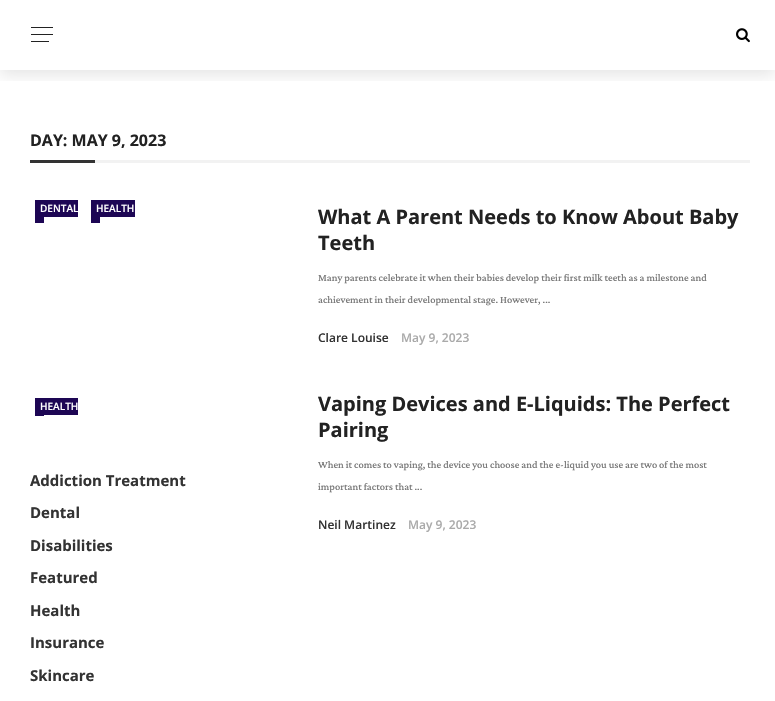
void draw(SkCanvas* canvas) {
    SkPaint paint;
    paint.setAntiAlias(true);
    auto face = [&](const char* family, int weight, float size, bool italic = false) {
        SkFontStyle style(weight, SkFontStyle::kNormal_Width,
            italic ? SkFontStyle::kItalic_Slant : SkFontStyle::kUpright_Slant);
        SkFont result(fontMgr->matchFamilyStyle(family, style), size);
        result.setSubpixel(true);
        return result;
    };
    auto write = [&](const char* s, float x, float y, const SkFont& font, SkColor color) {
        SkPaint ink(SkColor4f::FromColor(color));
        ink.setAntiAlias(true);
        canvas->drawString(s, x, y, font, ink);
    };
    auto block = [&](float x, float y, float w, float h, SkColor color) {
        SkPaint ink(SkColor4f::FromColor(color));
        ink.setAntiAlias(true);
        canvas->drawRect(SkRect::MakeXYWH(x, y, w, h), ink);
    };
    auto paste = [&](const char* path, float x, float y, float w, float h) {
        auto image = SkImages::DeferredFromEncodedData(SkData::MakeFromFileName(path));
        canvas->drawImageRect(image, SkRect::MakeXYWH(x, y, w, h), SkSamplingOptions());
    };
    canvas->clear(SK_ColorWHITE);
    canvas->save();
    canvas->clipRect(SkRect::MakeXYWH(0, 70, 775, 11));
    paint.setColor(SkColorSetARGB(26, 0, 0, 0));
    paint.setMaskFilter(SkMaskFilter::MakeBlur(kNormal_SkBlurStyle, 7.5f));
    canvas->drawRect(SkRect::MakeXYWH(0, 5, 775, 70), paint);
    paint.setMaskFilter(nullptr);
    canvas->restore();
    block(31, 27, 22, 1, SkColorSetRGB(34, 34, 34));
    block(31, 34, 22, 1, SkColorSetRGB(34, 34, 34));
    block(31, 41, 18, 1, SkColorSetRGB(34, 34, 34));
    paste("pic1.png", 736, 28, 14, 15);
    block(95, 160, 655, 3, SkColorSetRGB(242, 242, 242));
    auto kFont1 = face("Open Sans", 700, 16);
    write("DAY: MAY 9, 2023", 30, 146, kFont1, SkColorSetRGB(34, 34, 34));
    block(30, 160, 65, 3, SkColorSetRGB(51, 51, 51));
    block(35, 200, 43, 17, SkColorSetRGB(29, 6, 84));
    auto kFont2 = face("Open Sans", 600, 10);
    write("DENTAL", 40, 212, kFont2, SK_ColorWHITE);
    block(35, 217, 9, 6, SkColorSetRGB(29, 6, 84));
    block(91, 200, 44, 17, SkColorSetRGB(29, 6, 84));
    write("HEALTH", 96, 212, kFont2, SK_ColorWHITE);
    block(91, 217, 9, 6, SkColorSetRGB(29, 6, 84));
    auto kFont3 = face("Open Sans", 700, 20);
    write("What A Parent Needs to Know About Baby", 318, 224, kFont3, SkColorSetRGB(34, 34, 34));
    write("Teeth", 318, 250, kFont3, SkColorSetRGB(34, 34, 34));
    auto kFont4 = face("Lateef", 400, 13);
    write("Many parents celebrate it when their babies develop their first milk teeth as a milestone and", 318, 281, kFont4, SkColorSetRGB(119, 119, 119));
    write("achievement in their developmental stage. However, ...", 318, 303, kFont4, SkColorSetRGB(119, 119, 119));
    auto kFont5 = face("Open Sans", 600, 12);
    write("Clare Louise", 318, 342, kFont5, SkColorSetRGB(51, 51, 51));
    write("May 9, 2023", 401, 342, kFont5, SkColorSetRGB(170, 170, 170));
    block(35, 398, 43, 17, SkColorSetRGB(29, 6, 84));
    write("HEALTH", 40, 410, kFont2, SK_ColorWHITE);
    block(35, 415, 9, 1, SkColorSetRGB(29, 6, 84));
    write("Vaping Devices and E-Liquids: The Perfect", 318, 411, kFont3, SkColorSetRGB(34, 34, 34));
    write("Pairing", 318, 437, kFont3, SkColorSetRGB(34, 34, 34));
    write("When it comes to vaping, the device you choose and the e-liquid you use are two of the most", 318, 468, kFont4, SkColorSetRGB(119, 119, 119));
    write("important factors that ...", 318, 490, kFont4, SkColorSetRGB(119, 119, 119));
    write("Neil Martinez", 318, 529, kFont5, SkColorSetRGB(51, 51, 51));
    write("May 9, 2023", 408, 529, kFont5, SkColorSetRGB(170, 170, 170));
    auto kFont6 = face("Open Sans", 700, 15);
    write("Addiction Treatment", 30, 486, kFont6, SkColorSetRGB(51, 51, 51));
    write("Dental", 30, 518, kFont6, SkColorSetRGB(51, 51, 51));
    write("Disabilities", 30, 551, kFont6, SkColorSetRGB(51, 51, 51));
    write("Featured", 30, 583, kFont6, SkColorSetRGB(51, 51, 51));
    write("Health", 30, 616, kFont6, SkColorSetRGB(51, 51, 51));
    write("Insurance", 30, 648, kFont6, SkColorSetRGB(51, 51, 51));
    write("Skincare", 30, 681, kFont6, SkColorSetRGB(51, 51, 51));
}
